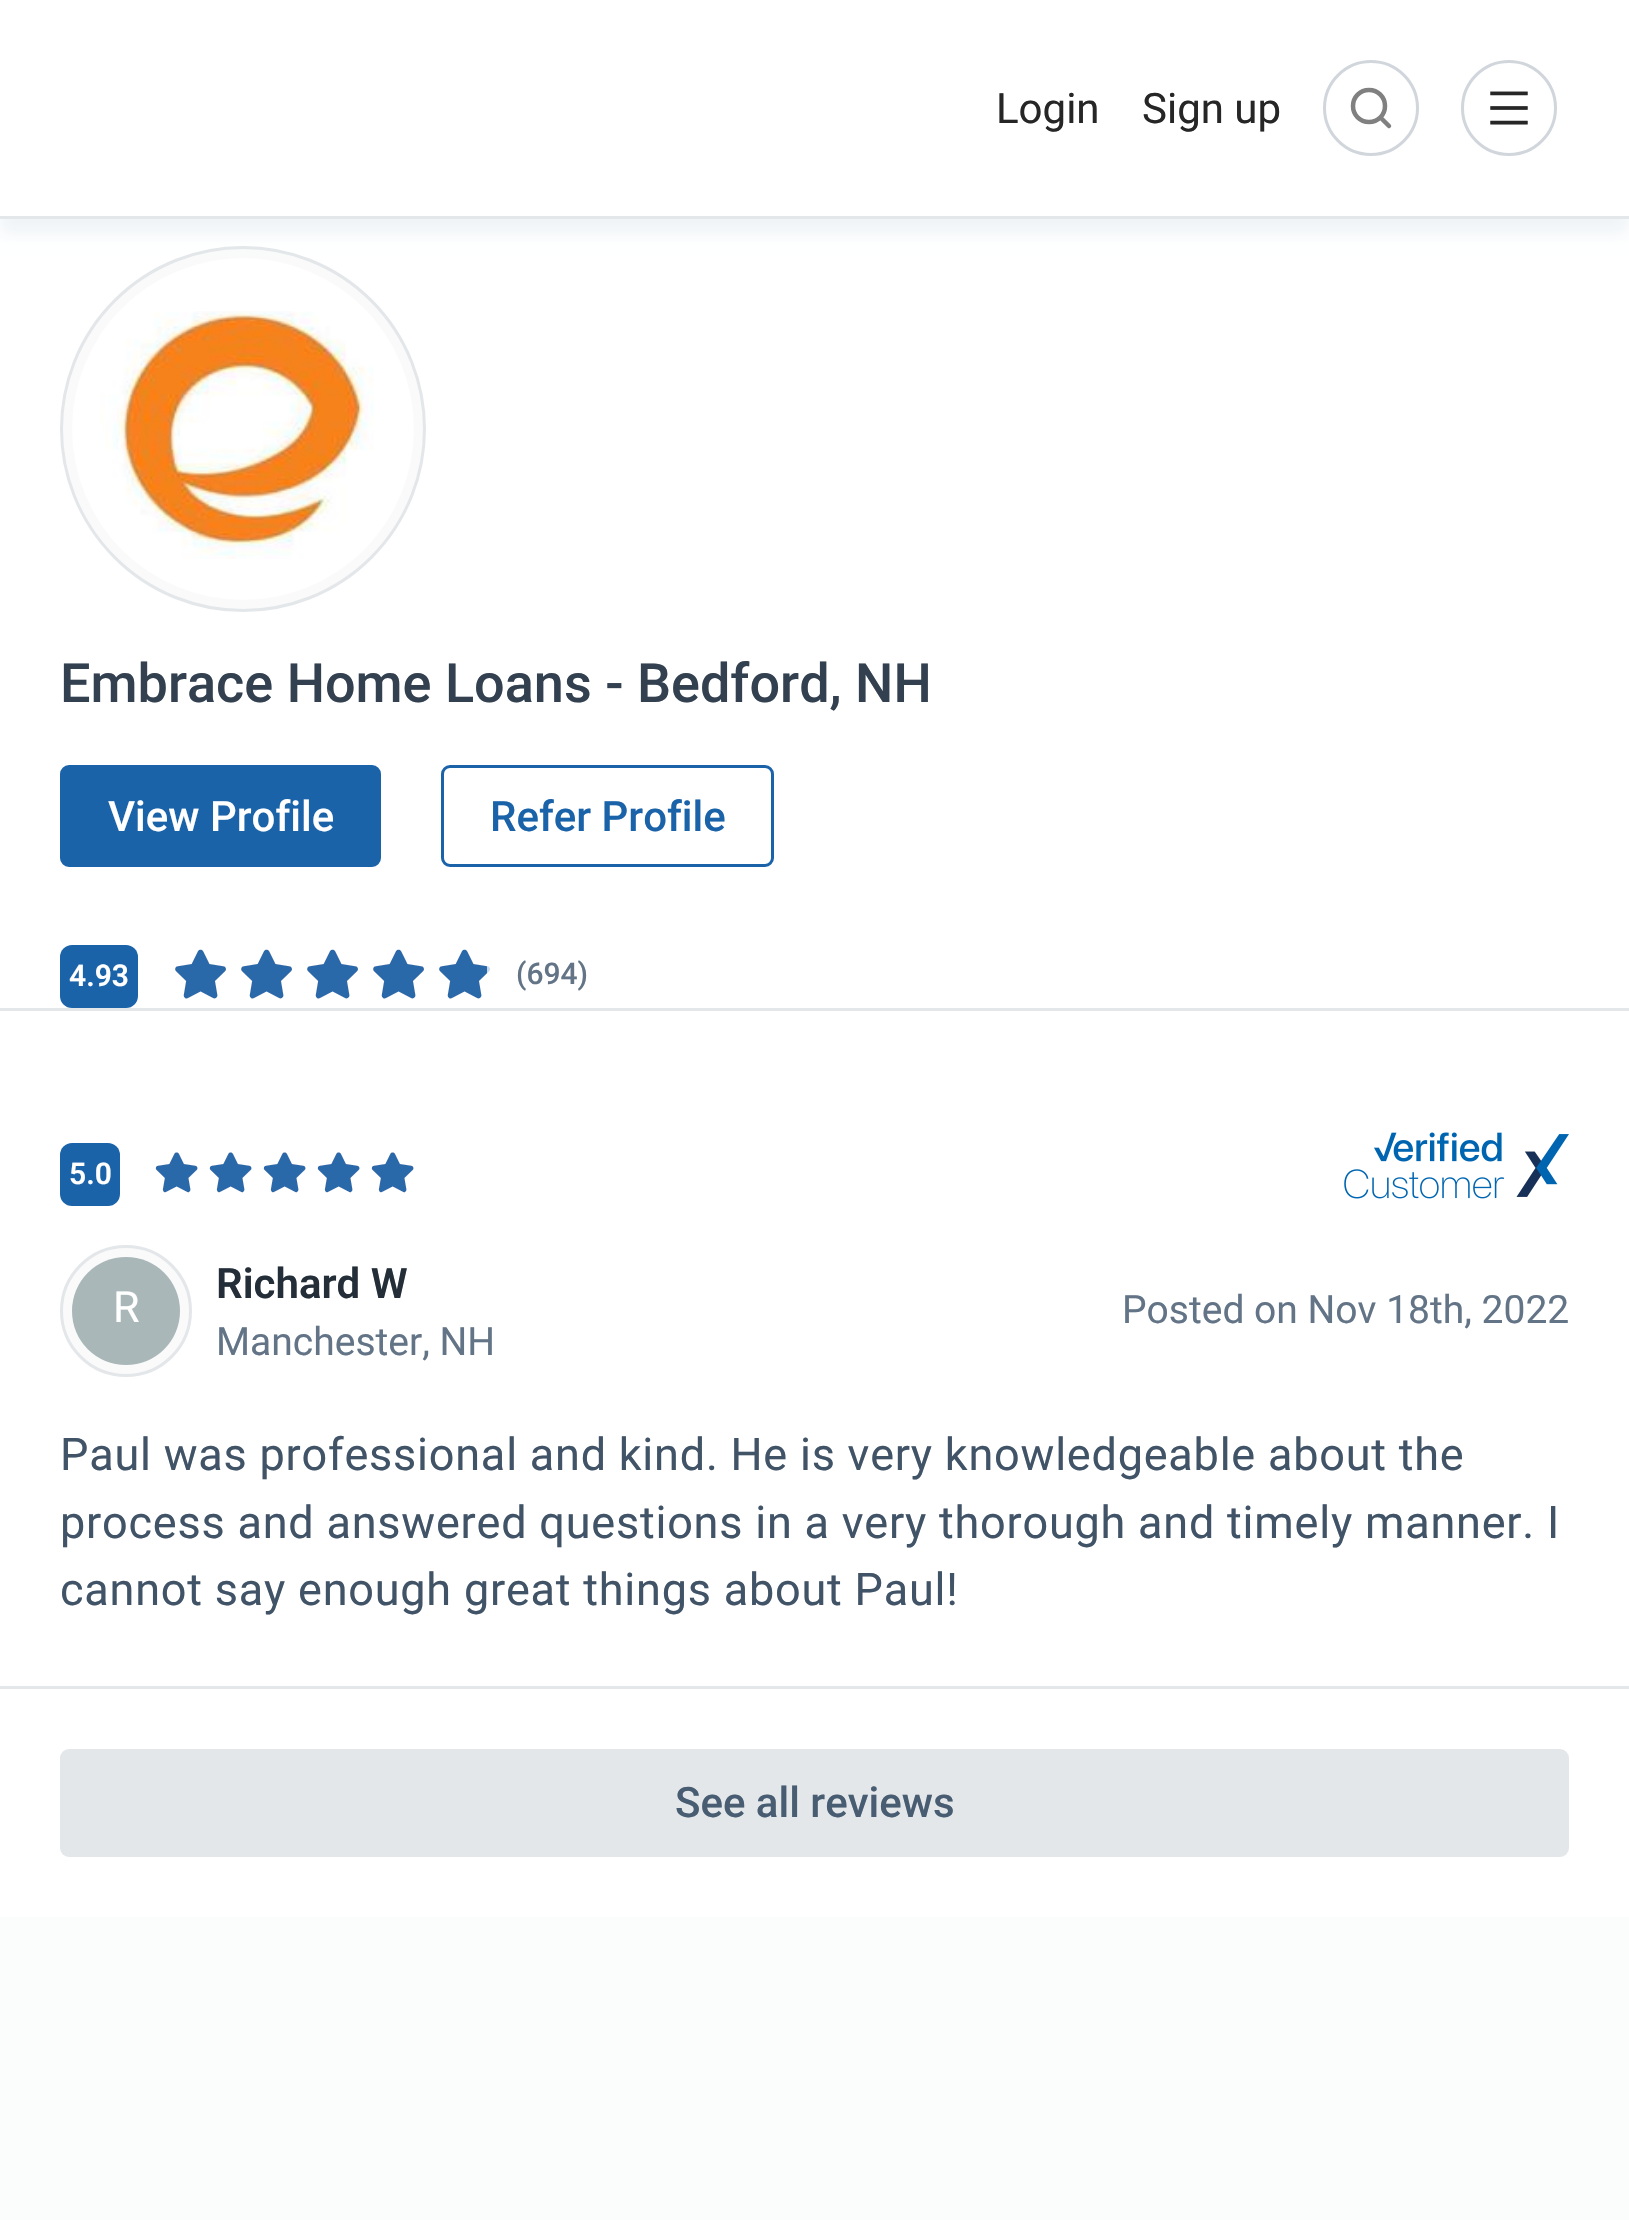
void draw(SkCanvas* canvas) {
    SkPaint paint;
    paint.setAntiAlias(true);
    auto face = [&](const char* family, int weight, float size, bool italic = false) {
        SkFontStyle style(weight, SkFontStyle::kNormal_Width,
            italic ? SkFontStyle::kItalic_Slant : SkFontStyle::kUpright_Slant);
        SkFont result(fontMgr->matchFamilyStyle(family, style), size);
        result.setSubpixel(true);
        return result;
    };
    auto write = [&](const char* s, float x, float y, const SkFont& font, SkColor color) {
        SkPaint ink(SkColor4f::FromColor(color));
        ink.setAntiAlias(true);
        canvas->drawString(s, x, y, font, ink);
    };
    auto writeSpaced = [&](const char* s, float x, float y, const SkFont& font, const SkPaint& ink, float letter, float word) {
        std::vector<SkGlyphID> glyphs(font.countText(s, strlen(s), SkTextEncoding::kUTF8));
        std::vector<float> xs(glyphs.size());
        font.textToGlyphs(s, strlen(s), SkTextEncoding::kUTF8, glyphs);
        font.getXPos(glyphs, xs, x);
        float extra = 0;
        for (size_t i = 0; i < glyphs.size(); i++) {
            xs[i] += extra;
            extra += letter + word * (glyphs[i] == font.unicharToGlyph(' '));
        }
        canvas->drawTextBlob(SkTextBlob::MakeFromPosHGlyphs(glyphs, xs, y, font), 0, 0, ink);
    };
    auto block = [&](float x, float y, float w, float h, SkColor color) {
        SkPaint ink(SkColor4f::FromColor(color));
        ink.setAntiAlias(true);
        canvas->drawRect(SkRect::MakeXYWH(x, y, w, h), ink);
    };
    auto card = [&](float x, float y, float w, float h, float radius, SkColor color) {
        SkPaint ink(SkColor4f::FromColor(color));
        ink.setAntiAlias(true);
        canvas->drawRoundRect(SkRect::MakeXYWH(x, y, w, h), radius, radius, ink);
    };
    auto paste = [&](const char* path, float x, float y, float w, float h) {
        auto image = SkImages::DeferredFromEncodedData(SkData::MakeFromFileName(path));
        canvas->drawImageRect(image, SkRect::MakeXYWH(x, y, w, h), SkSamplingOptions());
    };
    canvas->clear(SkColorSetRGB(251, 252, 252));
    block(0, 219, 1629, 1467, SK_ColorWHITE);
    paint.setColor(SkColorSetRGB(250, 250, 250));
    canvas->drawCircle(243, 429, 181.5f, paint);
    paint.setStyle(SkPaint::kStroke_Style);
    paint.setStrokeWidth(3);
    paint.setColor(SkColorSetRGB(228, 231, 234));
    canvas->drawCircle(243, 429, 181.5f, paint);
    paint.setStyle(SkPaint::kFill_Style);
    paint.setColor(SkColorSetARGB(15, 0, 72, 124));
    paint.setMaskFilter(SkMaskFilter::MakeBlur(kNormal_SkBlurStyle, 7.5f));
    canvas->drawRect(SkRect::MakeXYWH(0, 15, 1629, 219), paint);
    paint.setMaskFilter(nullptr);
    block(0, 0, 1629, 216, SK_ColorWHITE);
    block(0, 216, 1629, 3, SkColorSetRGB(228, 231, 234));
    auto kFont1 = face("Roboto", 400, 42);
    write("Login", 996, 123, kFont1, SkColorSetRGB(38, 38, 38));
    write("Sign up", 1142, 123, kFont1, SkColorSetRGB(38, 38, 38));
    paint.setStyle(SkPaint::kStroke_Style);
    paint.setColor(SkColorSetRGB(209, 214, 220));
    canvas->drawCircle(1371, 108, 46.5f, paint);
    paint.setStrokeWidth(4.5f);
    paint.setStrokeCap(SkPaint::kRound_Cap);
    paint.setStrokeJoin(SkPaint::kRound_Join);
    paint.setColor(SkColorSetRGB(128, 128, 128));
    canvas->drawPath(SkPathBuilder().moveTo(1369, 122).cubicTo(1378, 122, 1385, 115, 1385, 106).cubicTo(1385, 97, 1378, 90, 1369, 90).cubicTo(1360, 90, 1353, 97, 1353, 106).cubicTo(1353, 115, 1360, 122, 1369, 122).close().moveTo(1389, 126).lineTo(1380.5f, 117.5f).detach(), paint);
    paint.setStrokeWidth(3);
    paint.setStrokeCap(SkPaint::kButt_Cap);
    paint.setStrokeJoin(SkPaint::kMiter_Join);
    paint.setColor(SkColorSetRGB(209, 214, 220));
    canvas->drawCircle(1509, 108, 46.5f, paint);
    paste("pic1.png", 1490, 91, 38, 34);
    block(0, 1686, 1629, 3, SkColorSetRGB(228, 231, 234));
    block(0, 1008, 1629, 3, SkColorSetRGB(228, 231, 234));
    paint.setStyle(SkPaint::kFill_Style);
    paint.setColor(SK_ColorWHITE);
    canvas->drawCircle(243, 429, 171, paint);
    paste("pic2.png", 100, 311, 274, 248);
    auto kFont2 = face("Roboto", 500, 54);
    write("Embrace Home Loans - Bedford, NH", 60, 702, kFont2, SkColorSetRGB(50, 64, 80));
    paint.setColor(SkColorSetRGB(27, 99, 169));
    canvas->drawRoundRect(SkRect::MakeXYWH(61.5f, 766.5f, 318, 99), 7.5f, 7.5f, paint);
    paint.setStyle(SkPaint::kStroke_Style);
    canvas->drawRoundRect(SkRect::MakeXYWH(61.5f, 766.5f, 318, 99), 7.5f, 7.5f, paint);
    auto kFont3 = face("Roboto", 500, 42);
    write("View Profile", 108, 831, kFont3, SK_ColorWHITE);
    canvas->drawRoundRect(SkRect::MakeXYWH(442.5f, 766.5f, 330, 99), 7.5f, 7.5f, paint);
    write("Refer Profile", 490, 831, kFont3, SkColorSetRGB(27, 99, 169));
    card(60, 945, 78, 63, 12, SkColorSetRGB(27, 99, 169));
    auto kFont4 = face("Roboto", 600, 30);
    write("4.93", 69, 986, kFont4, SK_ColorWHITE);
    paste("pic3.png", 175, 949, 51, 50);
    paste("pic4.png", 241, 949, 51, 50);
    paste("pic3.png", 307, 949, 51, 50);
    paste("pic3.png", 373, 949, 51, 50);
    paste("pic5.png", 439, 949, 51, 50);
    auto kFont5 = face("Roboto", 500, 30);
    write("(694)", 516, 984, kFont5, SkColorSetRGB(99, 116, 135));
    card(60, 1143, 60, 63, 12, SkColorSetRGB(27, 99, 169));
    write("5.0", 69, 1184, kFont4, SK_ColorWHITE);
    paste("pic6.png", 155, 1152, 43, 41);
    paste("pic7.png", 209, 1152, 43, 41);
    paste("pic6.png", 263, 1152, 43, 41);
    paste("pic6.png", 317, 1152, 43, 41);
    paste("pic6.png", 371, 1152, 43, 41);
    paste("pic8.png", 1344, 1132, 225, 67);
    paint.setStyle(SkPaint::kFill_Style);
    paint.setColor(SkColorSetRGB(250, 250, 250));
    canvas->drawCircle(126, 1311, 64.5f, paint);
    paint.setStyle(SkPaint::kStroke_Style);
    paint.setColor(SkColorSetRGB(228, 231, 234));
    canvas->drawCircle(126, 1311, 64.5f, paint);
    paint.setStyle(SkPaint::kFill_Style);
    paint.setColor(SkColorSetRGB(169, 183, 184));
    canvas->drawCircle(126, 1311, 54, paint);
    auto kFont6 = face("Roboto", 400, 43);
    write("R", 113, 1322, kFont6, SK_ColorWHITE);
    auto kFont7 = face("Roboto", 600, 42);
    write("Richard W", 216, 1298, kFont7, SkColorSetRGB(36, 46, 57));
    auto kFont8 = face("Roboto", 400, 39);
    write("Manchester, NH", 216, 1355, kFont8, SkColorSetRGB(99, 116, 135));
    write("Posted on Nov 18th, 2022", 1122, 1323, kFont8, SkColorSetRGB(99, 116, 135));
    auto kFont9 = face("Roboto", 400, 45);
    paint.setColor(SkColorSetRGB(65, 83, 103));
    writeSpaced("Paul was professional and kind. He is very knowledgeable about the", 60, 1470, kFont9, paint, 0.78f, 0);
    writeSpaced("process and answered questions in a very thorough and timely manner. I", 60, 1538, kFont9, paint, 0.78f, 0);
    writeSpaced("cannot say enough great things about Paul!", 60, 1605, kFont9, paint, 0.78f, 0);
    block(0, 1689, 1629, 228, SK_ColorWHITE);
    card(60, 1749, 1509, 108, 9, SkColorSetRGB(228, 231, 234));
    write("See all reviews", 675, 1817, kFont3, SkColorSetRGB(72, 92, 114));
}
